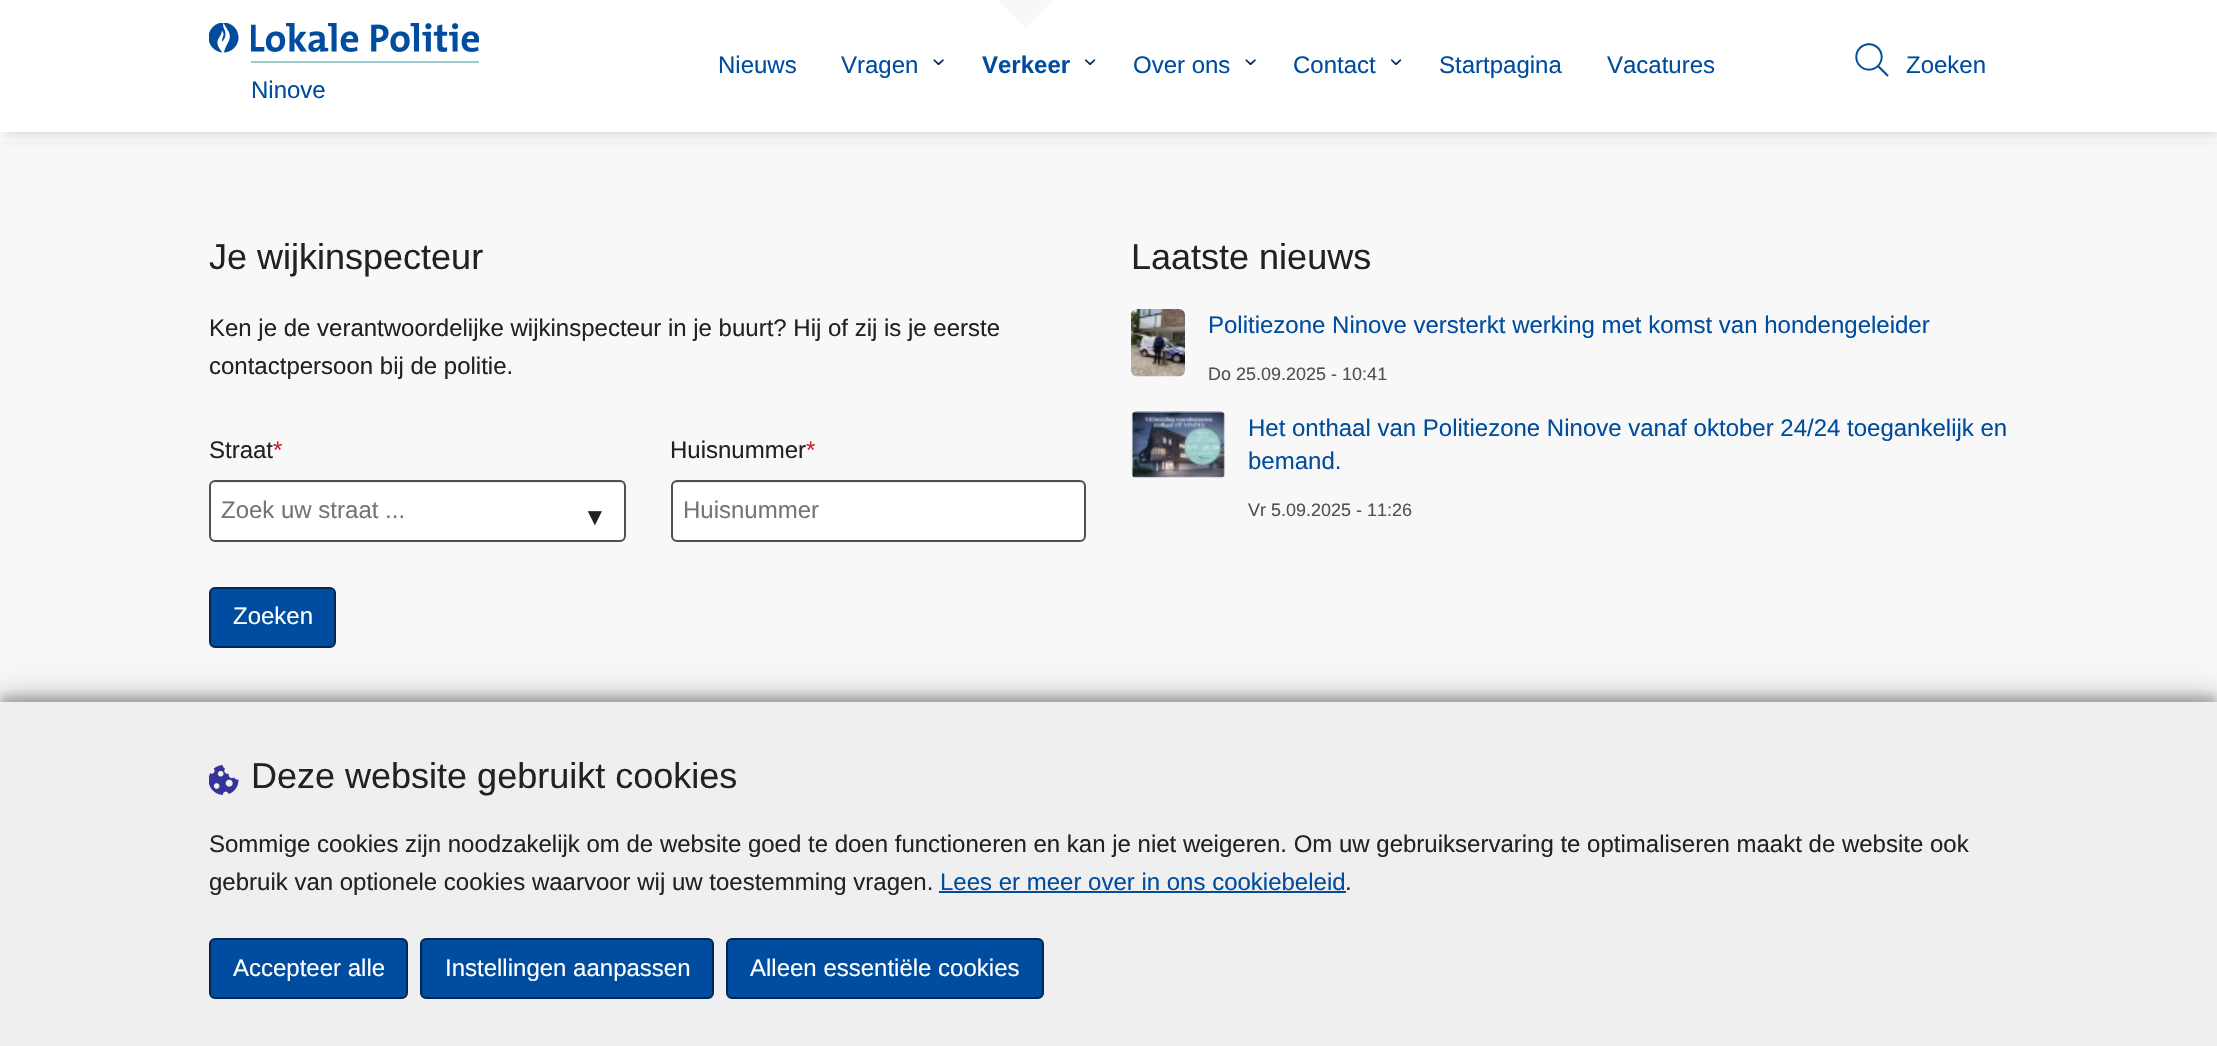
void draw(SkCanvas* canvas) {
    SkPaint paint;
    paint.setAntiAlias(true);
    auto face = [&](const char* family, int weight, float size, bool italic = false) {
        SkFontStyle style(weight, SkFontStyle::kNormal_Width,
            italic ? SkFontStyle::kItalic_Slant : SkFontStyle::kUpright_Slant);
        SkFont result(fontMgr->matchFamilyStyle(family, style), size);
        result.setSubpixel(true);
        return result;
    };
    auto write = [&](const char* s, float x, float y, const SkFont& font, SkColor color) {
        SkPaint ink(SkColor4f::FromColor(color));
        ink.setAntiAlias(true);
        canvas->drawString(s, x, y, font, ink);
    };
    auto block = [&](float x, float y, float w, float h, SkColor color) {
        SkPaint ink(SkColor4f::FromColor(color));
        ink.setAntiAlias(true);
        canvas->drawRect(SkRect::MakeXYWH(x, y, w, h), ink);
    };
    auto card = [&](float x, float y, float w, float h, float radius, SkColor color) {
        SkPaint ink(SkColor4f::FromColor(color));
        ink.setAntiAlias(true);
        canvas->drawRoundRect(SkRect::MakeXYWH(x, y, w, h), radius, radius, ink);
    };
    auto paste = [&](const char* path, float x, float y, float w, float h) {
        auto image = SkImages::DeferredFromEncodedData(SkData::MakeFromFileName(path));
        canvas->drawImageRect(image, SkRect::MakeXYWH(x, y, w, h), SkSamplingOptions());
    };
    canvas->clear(SK_ColorWHITE);
    block(0, 141, 2217, 561, SkColorSetRGB(248, 248, 248));
    paint.setColor(SkColorSetRGB(220, 220, 220));
    paint.setMaskFilter(SkMaskFilter::MakeBlur(kNormal_SkBlurStyle, 6));
    canvas->drawRect(SkRect::MakeXYWH(3, -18, 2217, 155), paint);
    paint.setMaskFilter(nullptr);
    block(0, 0, 2217, 132, SK_ColorWHITE);
    auto kFont1 = face("Liberation Sans", 400, 24);
    write("Nieuws", 718, 73, kFont1, SkColorSetRGB(0, 77, 159));
    write("Vragen", 841, 73, kFont1, SkColorSetRGB(0, 77, 159));
    paste("pic1.png", 933, 59, 11, 7);
    paint.setColor(SkColorSetRGB(248, 248, 248));
    canvas->drawPath(SkPathBuilder().moveTo(996, -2).lineTo(1056, -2).lineTo(1026, 28).close().detach(), paint);
    auto kFont2 = face("Liberation Sans", 700, 24);
    write("Verkeer", 982, 73, kFont2, SkColorSetRGB(0, 77, 159));
    paste("pic2.png", 1084, 59, 12, 7);
    write("Over ons", 1133, 73, kFont1, SkColorSetRGB(0, 77, 159));
    paste("pic1.png", 1245, 59, 11, 7);
    write("Contact", 1293, 73, kFont1, SkColorSetRGB(0, 77, 159));
    paste("pic2.png", 1390, 59, 12, 7);
    write("Startpagina", 1439, 73, kFont1, SkColorSetRGB(0, 77, 159));
    write("Vacatures", 1607, 73, kFont1, SkColorSetRGB(0, 77, 159));
    paste("pic3.png", 1855, 43, 34, 34);
    write("Zoeken", 1906, 73, kFont1, SkColorSetRGB(0, 77, 159));
    paste("pic4.png", 209, 23, 30, 30);
    paste("pic5.png", 251, 23, 228, 40);
    write("Ninove", 251, 98, kFont1, SkColorSetRGB(0, 77, 159));
    auto kFont3 = face("Liberation Sans", 400, 36);
    write("Je wijkinspecteur", 209, 269, kFont3, SkColorSetRGB(34, 34, 34));
    write("Ken je de verantwoordelijke wijkinspecteur in je buurt? Hij of zij is je eerste", 209, 336, kFont1, SkColorSetRGB(34, 34, 34));
    write("contactpersoon bij de politie.", 209, 374, kFont1, SkColorSetRGB(34, 34, 34));
    write("Straat", 209, 458, kFont1, SkColorSetRGB(34, 34, 34));
    write("*", 273, 458, kFont1, SkColorSetRGB(206, 32, 41));
    card(209, 480, 417, 62, 6, SK_ColorWHITE);
    paint.setColor(SkColorSetRGB(236, 236, 236));
    canvas->drawPath(SkPathBuilder().moveTo(214, 483).lineTo(620, 483).cubicTo(622, 483, 624, 485, 624, 488).lineTo(624, 487).cubicTo(624, 484, 622, 482, 619, 482).lineTo(215, 482).cubicTo(212, 482, 210, 484, 210, 487).lineTo(210, 488).cubicTo(210, 485, 212, 483, 214, 483).close().detach(), paint);
    paint.setStyle(SkPaint::kStroke_Style);
    paint.setStrokeWidth(2);
    paint.setColor(SkColorSetRGB(80, 80, 80));
    canvas->drawRoundRect(SkRect::MakeXYWH(210, 481, 415, 60), 5, 5, paint);
    write("Zoek uw straat ...", 221, 518, kFont1, SkColorSetRGB(117, 117, 117));
    write("▼", 583, 525, kFont1, SkColorSetRGB(34, 34, 34));
    write("Huisnummer", 670, 458, kFont1, SkColorSetRGB(34, 34, 34));
    write("*", 806, 458, kFont1, SkColorSetRGB(206, 32, 41));
    card(671, 480, 415, 62, 6, SK_ColorWHITE);
    paint.setStyle(SkPaint::kFill_Style);
    paint.setColor(SkColorSetRGB(236, 236, 236));
    canvas->drawPath(SkPathBuilder().moveTo(676, 483).lineTo(1080, 483).cubicTo(1082, 483, 1084, 485, 1084, 488).lineTo(1084, 538).cubicTo(1085, 537, 1085, 536, 1085, 535).lineTo(1085, 487).cubicTo(1085, 484, 1083, 482, 1080, 482).lineTo(677, 482).cubicTo(674, 482, 672, 484, 672, 487).lineTo(672, 488).cubicTo(672, 485, 674, 483, 676, 483).close().detach(), paint);
    paint.setStyle(SkPaint::kStroke_Style);
    paint.setColor(SkColorSetRGB(80, 80, 80));
    canvas->drawRoundRect(SkRect::MakeXYWH(672, 481, 413, 60), 5, 5, paint);
    write("Huisnummer", 683, 518, kFont1, SkColorSetRGB(117, 117, 117));
    paint.setStyle(SkPaint::kFill_Style);
    paint.setColor(SkColorSetRGB(0, 77, 159));
    canvas->drawRoundRect(SkRect::MakeXYWH(210, 588, 125, 59), 5, 5, paint);
    paint.setStyle(SkPaint::kStroke_Style);
    paint.setColor(SkColorSetRGB(0, 40, 83));
    canvas->drawRoundRect(SkRect::MakeXYWH(210, 588, 125, 59), 5, 5, paint);
    write("Zoeken", 233, 624, kFont1, SK_ColorWHITE);
    write("Laatste nieuws", 1131, 269, kFont3, SkColorSetRGB(34, 34, 34));
    paste("pic6.png", 1131, 309, 54, 68);
    write("Politiezone Ninove versterkt werking met komst van hondengeleider", 1208, 333, kFont1, SkColorSetRGB(0, 77, 159));
    auto kFont4 = face("Liberation Sans", 400, 18);
    write("Do 25.09.2025 - 10:41", 1208, 380, kFont4, SkColorSetRGB(80, 80, 80));
    paste("pic7.png", 1131, 411, 95, 67);
    write("Het onthaal van Politiezone Ninove vanaf oktober 24/24 toegankelijk en", 1248, 436, kFont1, SkColorSetRGB(0, 77, 159));
    write("bemand.", 1248, 469, kFont1, SkColorSetRGB(0, 77, 159));
    write("Vr 5.09.2025 - 11:26", 1248, 516, kFont4, SkColorSetRGB(80, 80, 80));
    paint.setStyle(SkPaint::kFill_Style);
    paint.setColor(SkColorSetARGB(59, 0, 0, 0));
    paint.setMaskFilter(SkMaskFilter::MakeBlur(kNormal_SkBlurStyle, 4.5f));
    canvas->drawRect(SkRect::MakeXYWH(0, 695, 2217, 345), paint);
    paint.setMaskFilter(nullptr);
    paint.setColor(SkColorSetARGB(48, 0, 0, 0));
    paint.setMaskFilter(SkMaskFilter::MakeBlur(kNormal_SkBlurStyle, 15));
    canvas->drawRect(SkRect::MakeXYWH(0, 695, 2217, 345), paint);
    paint.setMaskFilter(nullptr);
    block(0, 702, 2217, 344, SkColorSetRGB(239, 239, 239));
    paste("pic8.png", 209, 765, 30, 30);
    write("Deze website gebruikt cookies", 251, 788, kFont3, SkColorSetRGB(34, 34, 34));
    write("Sommige cookies zijn noodzakelijk om de website goed te doen functioneren en kan je niet weigeren. Om uw gebruikservaring te optimaliseren maakt de website ook", 209, 852, kFont1, SkColorSetRGB(34, 34, 34));
    write("gebruik van optionele cookies waarvoor wij uw toestemming vragen.", 209, 890, kFont1, SkColorSetRGB(34, 34, 34));
    write("Lees er meer over in ons cookiebeleid", 940, 890, kFont1, SkColorSetRGB(0, 77, 159));
    block(939, 891, 407, 2, SkColorSetRGB(0, 77, 159));
    write(".", 1345, 890, kFont1, SkColorSetRGB(34, 34, 34));
    paint.setColor(SkColorSetRGB(0, 77, 159));
    canvas->drawRoundRect(SkRect::MakeXYWH(210, 939, 197, 59), 5, 5, paint);
    paint.setStyle(SkPaint::kStroke_Style);
    paint.setColor(SkColorSetRGB(0, 40, 83));
    canvas->drawRoundRect(SkRect::MakeXYWH(210, 939, 197, 59), 5, 5, paint);
    write("Accepteer alle", 233, 976, kFont1, SK_ColorWHITE);
    paint.setStyle(SkPaint::kFill_Style);
    paint.setColor(SkColorSetRGB(0, 77, 159));
    canvas->drawRoundRect(SkRect::MakeXYWH(421, 939, 292, 59), 5, 5, paint);
    paint.setStyle(SkPaint::kStroke_Style);
    paint.setColor(SkColorSetRGB(0, 40, 83));
    canvas->drawRoundRect(SkRect::MakeXYWH(421, 939, 292, 59), 5, 5, paint);
    write("Instellingen aanpassen", 445, 976, kFont1, SK_ColorWHITE);
    paint.setStyle(SkPaint::kFill_Style);
    paint.setColor(SkColorSetRGB(0, 77, 159));
    canvas->drawRoundRect(SkRect::MakeXYWH(727, 939, 316, 59), 5, 5, paint);
    paint.setStyle(SkPaint::kStroke_Style);
    paint.setColor(SkColorSetRGB(0, 40, 83));
    canvas->drawRoundRect(SkRect::MakeXYWH(727, 939, 316, 59), 5, 5, paint);
    write("Alleen essentiële cookies", 750, 976, kFont1, SK_ColorWHITE);
}
